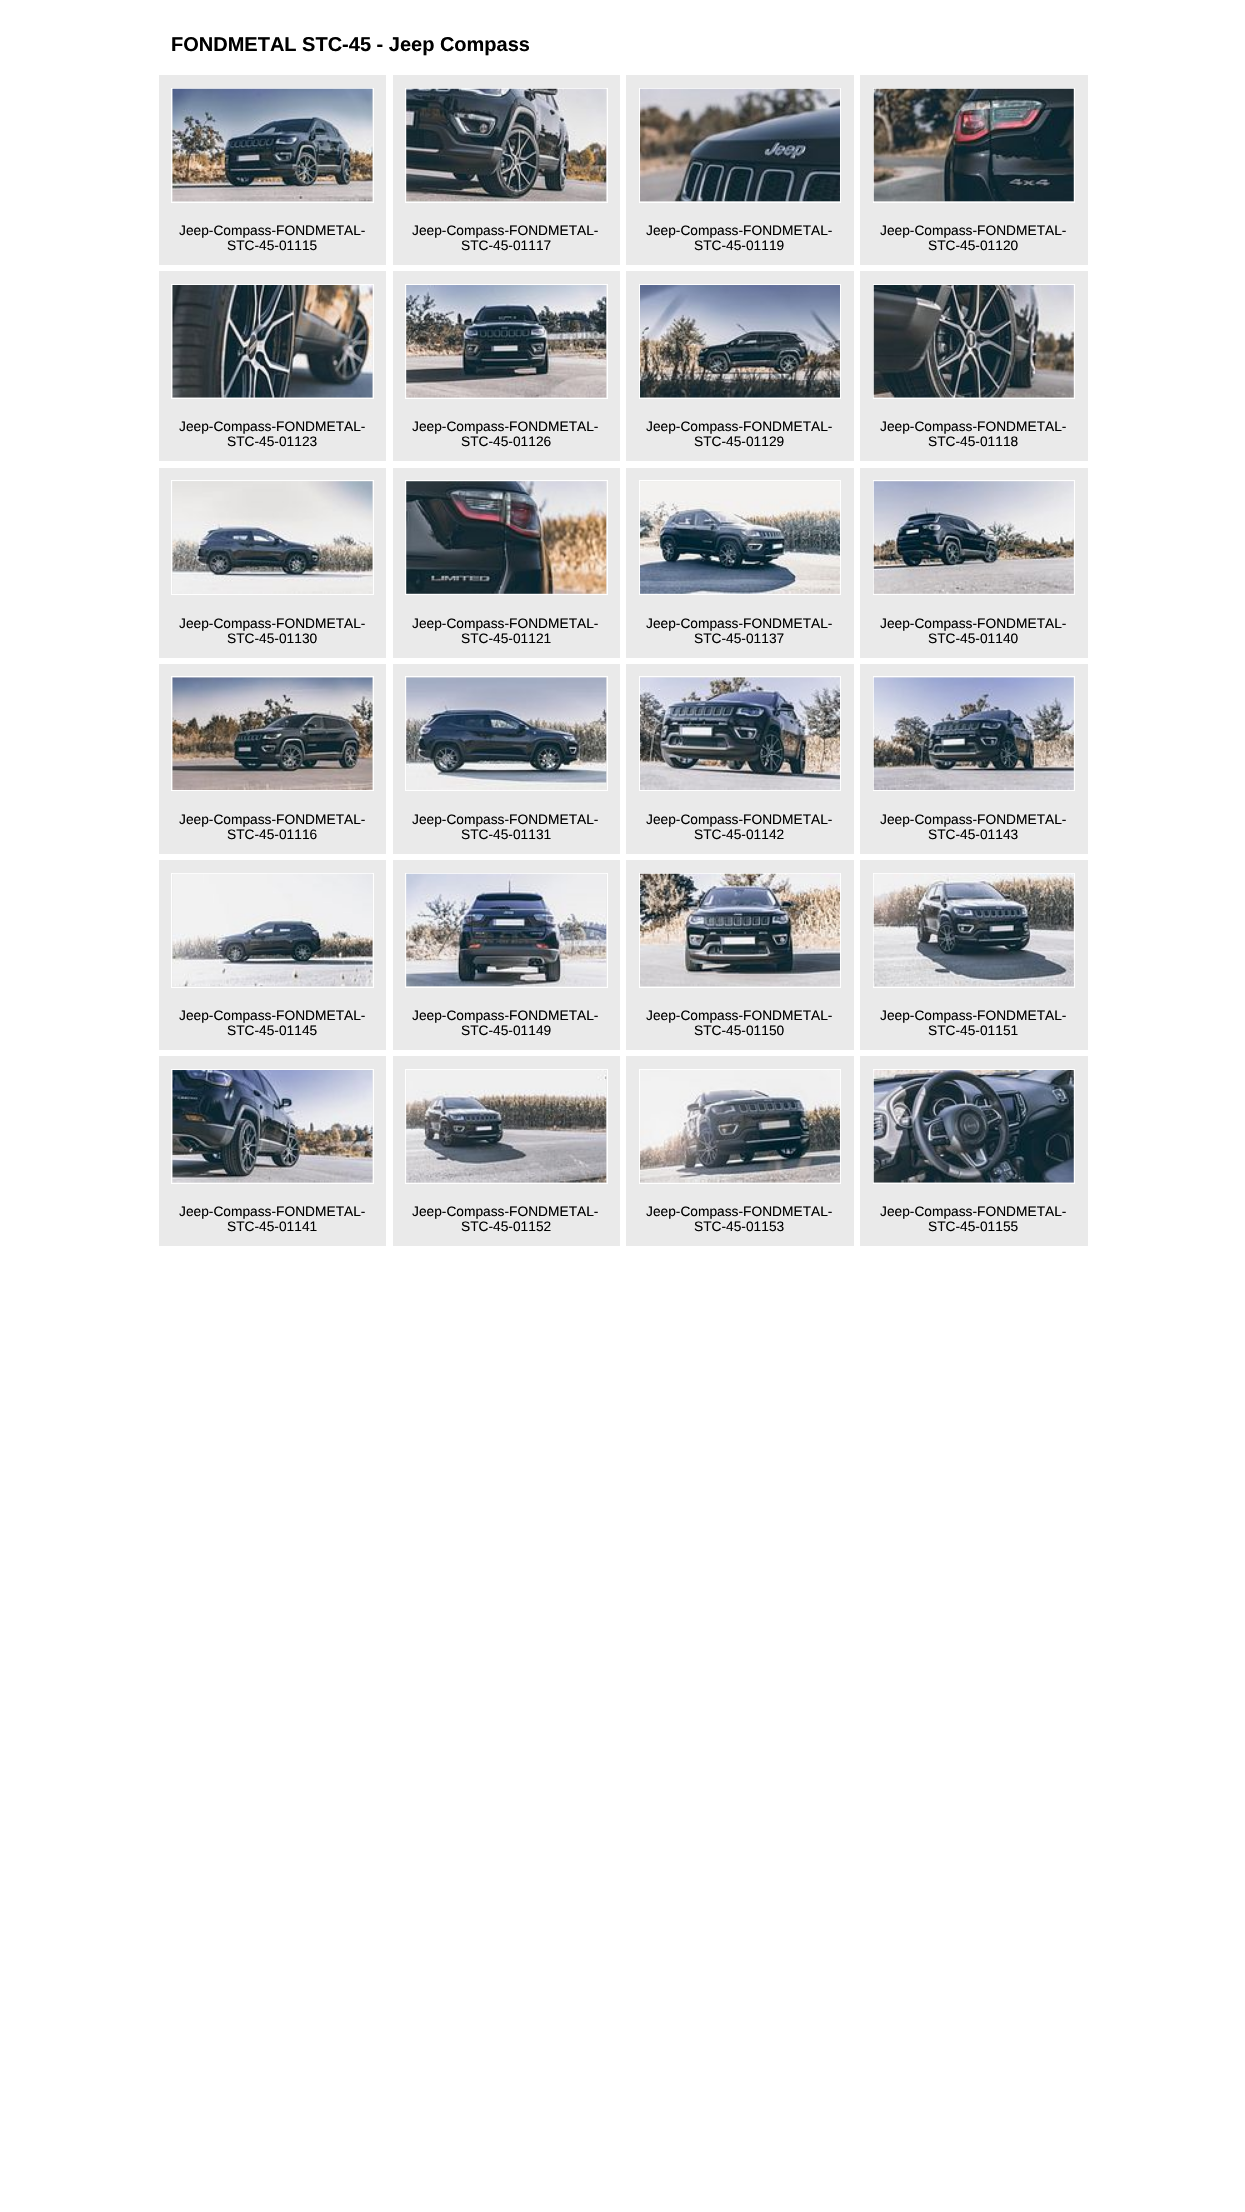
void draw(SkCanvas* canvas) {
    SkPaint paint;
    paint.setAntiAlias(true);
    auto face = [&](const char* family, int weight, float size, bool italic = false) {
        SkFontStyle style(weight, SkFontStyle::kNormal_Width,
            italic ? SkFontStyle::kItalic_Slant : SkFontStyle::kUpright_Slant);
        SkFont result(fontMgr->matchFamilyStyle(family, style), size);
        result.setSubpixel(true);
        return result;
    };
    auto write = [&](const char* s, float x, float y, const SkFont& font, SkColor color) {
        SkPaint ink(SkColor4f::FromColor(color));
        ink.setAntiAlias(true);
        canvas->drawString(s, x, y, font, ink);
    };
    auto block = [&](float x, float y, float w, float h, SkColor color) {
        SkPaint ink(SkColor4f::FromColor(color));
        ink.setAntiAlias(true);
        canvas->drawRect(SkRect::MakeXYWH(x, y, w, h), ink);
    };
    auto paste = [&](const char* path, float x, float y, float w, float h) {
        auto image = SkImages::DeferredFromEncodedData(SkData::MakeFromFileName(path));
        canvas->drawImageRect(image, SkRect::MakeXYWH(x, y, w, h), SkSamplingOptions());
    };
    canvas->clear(SK_ColorWHITE);
    auto kFont1 = face("Liberation Sans", 700, 20);
    write("FONDMETAL STC-45 - Jeep Compass", 171, 51, kFont1, SK_ColorBLACK);
    block(159, 75, 227, 190, SkColorSetRGB(234, 234, 234));
    paint.setStyle(SkPaint::kStroke_Style);
    paint.setStrokeWidth(1);
    paint.setColor(SK_ColorWHITE);
    canvas->drawRect(SkRect::MakeXYWH(171.5f, 88.5f, 202, 114), paint);
    paste("pic1.png", 172, 88, 201, 114);
    auto kFont2 = face("Liberation Sans", 400, 13.75f);
    write("Jeep-Compass-FONDMETAL-", 179, 235, kFont2, SK_ColorBLACK);
    write("STC-45-01115", 227, 250, kFont2, SK_ColorBLACK);
    block(393, 75, 227, 190, SkColorSetRGB(234, 234, 234));
    canvas->drawRect(SkRect::MakeXYWH(405.5f, 88.5f, 202, 114), paint);
    paste("pic2.png", 406, 88, 201, 114);
    write("Jeep-Compass-FONDMETAL-", 412, 235, kFont2, SK_ColorBLACK);
    write("STC-45-01117", 461, 250, kFont2, SK_ColorBLACK);
    block(626, 75, 228, 190, SkColorSetRGB(234, 234, 234));
    canvas->drawRect(SkRect::MakeXYWH(639.5f, 88.5f, 201, 114), paint);
    paste("pic3.png", 640, 88, 200, 114);
    write("Jeep-Compass-FONDMETAL-", 646, 235, kFont2, SK_ColorBLACK);
    write("STC-45-01119", 694, 250, kFont2, SK_ColorBLACK);
    block(860, 75, 228, 190, SkColorSetRGB(234, 234, 234));
    canvas->drawRect(SkRect::MakeXYWH(873.5f, 88.5f, 201, 114), paint);
    paste("pic4.png", 873, 88, 201, 114);
    write("Jeep-Compass-FONDMETAL-", 880, 235, kFont2, SK_ColorBLACK);
    write("STC-45-01120", 928, 250, kFont2, SK_ColorBLACK);
    block(159, 271, 227, 190, SkColorSetRGB(234, 234, 234));
    canvas->drawRect(SkRect::MakeXYWH(171.5f, 284.5f, 202, 114), paint);
    paste("pic5.png", 172, 285, 201, 113);
    write("Jeep-Compass-FONDMETAL-", 179, 431, kFont2, SK_ColorBLACK);
    write("STC-45-01123", 227, 446, kFont2, SK_ColorBLACK);
    block(393, 271, 227, 190, SkColorSetRGB(234, 234, 234));
    canvas->drawRect(SkRect::MakeXYWH(405.5f, 284.5f, 202, 114), paint);
    paste("pic6.png", 406, 285, 201, 113);
    write("Jeep-Compass-FONDMETAL-", 412, 431, kFont2, SK_ColorBLACK);
    write("STC-45-01126", 461, 446, kFont2, SK_ColorBLACK);
    block(626, 271, 228, 190, SkColorSetRGB(234, 234, 234));
    canvas->drawRect(SkRect::MakeXYWH(639.5f, 284.5f, 201, 114), paint);
    paste("pic7.png", 640, 285, 200, 113);
    write("Jeep-Compass-FONDMETAL-", 646, 431, kFont2, SK_ColorBLACK);
    write("STC-45-01129", 694, 446, kFont2, SK_ColorBLACK);
    block(860, 271, 228, 190, SkColorSetRGB(234, 234, 234));
    canvas->drawRect(SkRect::MakeXYWH(873.5f, 284.5f, 201, 114), paint);
    paste("pic8.png", 873, 285, 201, 113);
    write("Jeep-Compass-FONDMETAL-", 880, 431, kFont2, SK_ColorBLACK);
    write("STC-45-01118", 928, 446, kFont2, SK_ColorBLACK);
    block(159, 468, 227, 190, SkColorSetRGB(234, 234, 234));
    canvas->drawRect(SkRect::MakeXYWH(171.5f, 480.5f, 202, 114), paint);
    paste("pic9.png", 172, 481, 201, 113);
    write("Jeep-Compass-FONDMETAL-", 179, 628, kFont2, SK_ColorBLACK);
    write("STC-45-01130", 227, 643, kFont2, SK_ColorBLACK);
    block(393, 468, 227, 190, SkColorSetRGB(234, 234, 234));
    canvas->drawRect(SkRect::MakeXYWH(405.5f, 480.5f, 202, 114), paint);
    paste("pic10.png", 406, 481, 201, 113);
    write("Jeep-Compass-FONDMETAL-", 412, 628, kFont2, SK_ColorBLACK);
    write("STC-45-01121", 461, 643, kFont2, SK_ColorBLACK);
    block(626, 468, 228, 190, SkColorSetRGB(234, 234, 234));
    canvas->drawRect(SkRect::MakeXYWH(639.5f, 480.5f, 201, 114), paint);
    paste("pic11.png", 640, 481, 200, 113);
    write("Jeep-Compass-FONDMETAL-", 646, 628, kFont2, SK_ColorBLACK);
    write("STC-45-01137", 694, 643, kFont2, SK_ColorBLACK);
    block(860, 468, 228, 190, SkColorSetRGB(234, 234, 234));
    canvas->drawRect(SkRect::MakeXYWH(873.5f, 480.5f, 201, 114), paint);
    paste("pic12.png", 873, 481, 201, 113);
    write("Jeep-Compass-FONDMETAL-", 880, 628, kFont2, SK_ColorBLACK);
    write("STC-45-01140", 928, 643, kFont2, SK_ColorBLACK);
    block(159, 664, 227, 190, SkColorSetRGB(234, 234, 234));
    canvas->drawRect(SkRect::MakeXYWH(171.5f, 676.5f, 202, 114), paint);
    paste("pic13.png", 172, 677, 201, 113);
    write("Jeep-Compass-FONDMETAL-", 179, 824, kFont2, SK_ColorBLACK);
    write("STC-45-01116", 227, 839, kFont2, SK_ColorBLACK);
    block(393, 664, 227, 190, SkColorSetRGB(234, 234, 234));
    canvas->drawRect(SkRect::MakeXYWH(405.5f, 676.5f, 202, 114), paint);
    paste("pic14.png", 406, 677, 201, 113);
    write("Jeep-Compass-FONDMETAL-", 412, 824, kFont2, SK_ColorBLACK);
    write("STC-45-01131", 461, 839, kFont2, SK_ColorBLACK);
    block(626, 664, 228, 190, SkColorSetRGB(234, 234, 234));
    canvas->drawRect(SkRect::MakeXYWH(639.5f, 676.5f, 201, 114), paint);
    paste("pic15.png", 640, 677, 200, 113);
    write("Jeep-Compass-FONDMETAL-", 646, 824, kFont2, SK_ColorBLACK);
    write("STC-45-01142", 694, 839, kFont2, SK_ColorBLACK);
    block(860, 664, 228, 190, SkColorSetRGB(234, 234, 234));
    canvas->drawRect(SkRect::MakeXYWH(873.5f, 676.5f, 201, 114), paint);
    paste("pic16.png", 873, 677, 201, 113);
    write("Jeep-Compass-FONDMETAL-", 880, 824, kFont2, SK_ColorBLACK);
    write("STC-45-01143", 928, 839, kFont2, SK_ColorBLACK);
    block(159, 860, 227, 190, SkColorSetRGB(234, 234, 234));
    canvas->drawRect(SkRect::MakeXYWH(171.5f, 873.5f, 202, 114), paint);
    paste("pic17.png", 172, 873, 201, 114);
    write("Jeep-Compass-FONDMETAL-", 179, 1020, kFont2, SK_ColorBLACK);
    write("STC-45-01145", 227, 1035, kFont2, SK_ColorBLACK);
    block(393, 860, 227, 190, SkColorSetRGB(234, 234, 234));
    canvas->drawRect(SkRect::MakeXYWH(405.5f, 873.5f, 202, 114), paint);
    paste("pic18.png", 406, 873, 201, 114);
    write("Jeep-Compass-FONDMETAL-", 412, 1020, kFont2, SK_ColorBLACK);
    write("STC-45-01149", 461, 1035, kFont2, SK_ColorBLACK);
    block(626, 860, 228, 190, SkColorSetRGB(234, 234, 234));
    canvas->drawRect(SkRect::MakeXYWH(639.5f, 873.5f, 201, 114), paint);
    paste("pic19.png", 640, 873, 200, 114);
    write("Jeep-Compass-FONDMETAL-", 646, 1020, kFont2, SK_ColorBLACK);
    write("STC-45-01150", 694, 1035, kFont2, SK_ColorBLACK);
    block(860, 860, 228, 190, SkColorSetRGB(234, 234, 234));
    canvas->drawRect(SkRect::MakeXYWH(873.5f, 873.5f, 201, 114), paint);
    paste("pic20.png", 873, 873, 201, 114);
    write("Jeep-Compass-FONDMETAL-", 880, 1020, kFont2, SK_ColorBLACK);
    write("STC-45-01151", 928, 1035, kFont2, SK_ColorBLACK);
    block(159, 1056, 227, 190, SkColorSetRGB(234, 234, 234));
    canvas->drawRect(SkRect::MakeXYWH(171.5f, 1069.5f, 202, 114), paint);
    paste("pic21.png", 172, 1070, 201, 113);
    write("Jeep-Compass-FONDMETAL-", 179, 1216, kFont2, SK_ColorBLACK);
    write("STC-45-01141", 227, 1231, kFont2, SK_ColorBLACK);
    block(393, 1056, 227, 190, SkColorSetRGB(234, 234, 234));
    canvas->drawRect(SkRect::MakeXYWH(405.5f, 1069.5f, 202, 114), paint);
    paste("pic22.png", 406, 1070, 201, 113);
    write("Jeep-Compass-FONDMETAL-", 412, 1216, kFont2, SK_ColorBLACK);
    write("STC-45-01152", 461, 1231, kFont2, SK_ColorBLACK);
    block(626, 1056, 228, 190, SkColorSetRGB(234, 234, 234));
    canvas->drawRect(SkRect::MakeXYWH(639.5f, 1069.5f, 201, 114), paint);
    paste("pic23.png", 640, 1070, 200, 113);
    write("Jeep-Compass-FONDMETAL-", 646, 1216, kFont2, SK_ColorBLACK);
    write("STC-45-01153", 694, 1231, kFont2, SK_ColorBLACK);
    block(860, 1056, 228, 190, SkColorSetRGB(234, 234, 234));
    canvas->drawRect(SkRect::MakeXYWH(873.5f, 1069.5f, 201, 114), paint);
    paste("pic24.png", 873, 1070, 201, 113);
    write("Jeep-Compass-FONDMETAL-", 880, 1216, kFont2, SK_ColorBLACK);
    write("STC-45-01155", 928, 1231, kFont2, SK_ColorBLACK);
}
